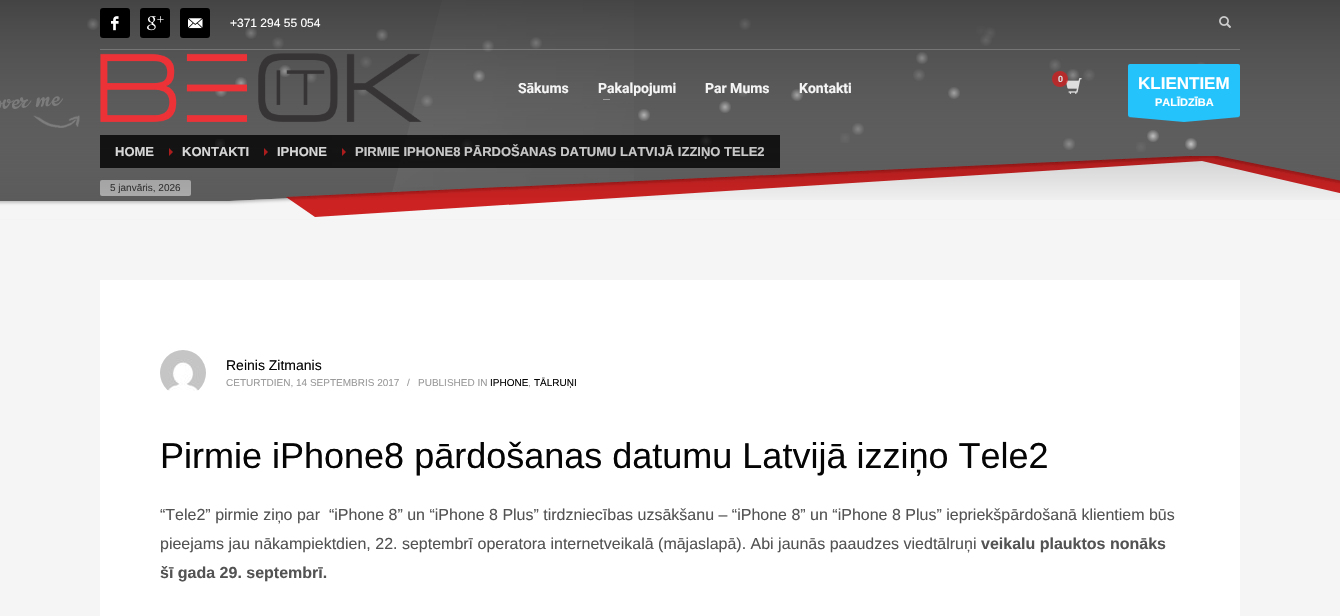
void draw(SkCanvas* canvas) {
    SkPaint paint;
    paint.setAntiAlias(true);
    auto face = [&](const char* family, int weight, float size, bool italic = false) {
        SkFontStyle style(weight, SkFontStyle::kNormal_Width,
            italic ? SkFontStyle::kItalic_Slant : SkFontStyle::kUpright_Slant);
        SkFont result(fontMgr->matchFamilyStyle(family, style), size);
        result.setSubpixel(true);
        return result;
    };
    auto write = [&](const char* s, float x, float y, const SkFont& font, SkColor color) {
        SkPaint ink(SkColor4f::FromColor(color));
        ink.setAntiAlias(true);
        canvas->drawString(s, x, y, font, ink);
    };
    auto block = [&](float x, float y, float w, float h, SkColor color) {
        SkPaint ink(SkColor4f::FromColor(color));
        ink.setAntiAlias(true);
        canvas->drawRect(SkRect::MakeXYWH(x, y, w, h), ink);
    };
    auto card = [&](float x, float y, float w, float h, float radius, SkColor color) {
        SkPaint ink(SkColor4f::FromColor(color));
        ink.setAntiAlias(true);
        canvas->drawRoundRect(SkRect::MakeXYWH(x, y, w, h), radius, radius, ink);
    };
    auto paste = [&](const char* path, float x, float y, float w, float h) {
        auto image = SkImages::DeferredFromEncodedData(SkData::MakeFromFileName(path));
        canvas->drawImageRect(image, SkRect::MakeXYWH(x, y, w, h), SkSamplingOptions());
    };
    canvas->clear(SkColorSetRGB(245, 245, 245));
    {
        const SkColor colors[] = {SkColorSetRGB(169, 169, 169), SkColorSetRGB(85, 85, 85)};
        const float stops[] = {0, 1};
        const SkPoint ends[] = {{670, 0}, {670, 220}};
        paint.setShader(SkGradientShader::MakeLinear(ends, colors, stops, 2, SkTileMode::kClamp));
        paint.setAlpha(255);
    }
    canvas->drawRect(SkRect::MakeXYWH(0, 0, 1340, 201), paint);
    {
        const SkColor colors[] = {SkColorSetRGB(34, 34, 34), SkColorSetRGB(17, 17, 17)};
        const float stops[] = {0, 1};
        const SkPoint ends[] = {{670, 0}, {670, 220}};
        paint.setShader(SkGradientShader::MakeLinear(ends, colors, stops, 2, SkTileMode::kClamp));
        paint.setAlpha(255);
    }
    canvas->drawRect(SkRect::MakeXYWH(254, 135, 78, 33), paint);
    canvas->drawRect(SkRect::MakeXYWH(159, 135, 95, 33), paint);
    canvas->drawRect(SkRect::MakeXYWH(100, 135, 59, 33), paint);
    paste("pic8.png", 392, 0, 242, 193);
    {
        const SkColor colors[] = {SkColorSetARGB(230, 255, 255, 255), SkColorSetARGB(0, 255, 255, 255)};
        const float stops[] = {0, 0.6f};
        paint.setShader(SkGradientShader::MakeRadial({93, 24}, 11, colors, stops, 2, SkTileMode::kClamp));
        paint.setAlpha(255);
    }
    canvas->drawRect(SkRect::MakeXYWH(87, 18, 12, 12), paint);
    {
        const SkColor colors[] = {SkColorSetARGB(128, 255, 255, 255), SkColorSetARGB(0, 255, 255, 255)};
        const float stops[] = {0, 0.6f};
        paint.setShader(SkGradientShader::MakeRadial({745, 24}, 11, colors, stops, 2, SkTileMode::kClamp));
        paint.setAlpha(255);
    }
    canvas->drawRect(SkRect::MakeXYWH(739, 18, 12, 12), paint);
    {
        const SkColor colors[] = {SkColorSetARGB(230, 255, 255, 255), SkColorSetARGB(0, 255, 255, 255)};
        const float stops[] = {0, 0.6f};
        paint.setShader(SkGradientShader::MakeRadial({251, 33}, 11, colors, stops, 2, SkTileMode::kClamp));
        paint.setAlpha(255);
    }
    canvas->drawRect(SkRect::MakeXYWH(245, 27, 12, 12), paint);
    {
        const SkColor colors[] = {SkColorSetARGB(230, 255, 255, 255), SkColorSetARGB(0, 255, 255, 255)};
        const float stops[] = {0, 0.6f};
        paint.setShader(SkGradientShader::MakeRadial({382, 35}, 11, colors, stops, 2, SkTileMode::kClamp));
        paint.setAlpha(255);
    }
    canvas->drawRect(SkRect::MakeXYWH(376, 29, 12, 12), paint);
    {
        const SkColor colors[] = {SkColorSetARGB(77, 255, 255, 255), SkColorSetARGB(0, 255, 255, 255)};
        const float stops[] = {0, 0.6f};
        paint.setShader(SkGradientShader::MakeRadial({990, 33}, 11, colors, stops, 2, SkTileMode::kClamp));
        paint.setAlpha(255);
    }
    canvas->drawRect(SkRect::MakeXYWH(984, 27, 12, 12), paint);
    {
        const SkColor colors[] = {SkColorSetARGB(26, 255, 255, 255), SkColorSetARGB(0, 255, 255, 255)};
        const float stops[] = {0, 0.6f};
        paint.setShader(SkGradientShader::MakeRadial({981, 31}, 11, colors, stops, 2, SkTileMode::kClamp));
        paint.setAlpha(255);
    }
    canvas->drawRect(SkRect::MakeXYWH(976, 26, 10, 10), paint);
    {
        const SkColor colors[] = {SkColorSetARGB(128, 255, 255, 255), SkColorSetARGB(0, 255, 255, 255)};
        const float stops[] = {0, 0.6f};
        paint.setShader(SkGradientShader::MakeRadial({278, 43}, 11, colors, stops, 2, SkTileMode::kClamp));
        paint.setAlpha(255);
    }
    canvas->drawRect(SkRect::MakeXYWH(272, 37, 12, 12), paint);
    {
        const SkColor colors[] = {SkColorSetARGB(179, 255, 255, 255), SkColorSetARGB(0, 255, 255, 255)};
        const float stops[] = {0, 0.6f};
        paint.setShader(SkGradientShader::MakeRadial({488, 46}, 11, colors, stops, 2, SkTileMode::kClamp));
        paint.setAlpha(255);
    }
    canvas->drawRect(SkRect::MakeXYWH(482, 40, 12, 12), paint);
    {
        const SkColor colors[] = {SkColorSetARGB(179, 255, 255, 255), SkColorSetARGB(0, 255, 255, 255)};
        const float stops[] = {0, 0.6f};
        paint.setShader(SkGradientShader::MakeRadial({536, 43}, 11, colors, stops, 2, SkTileMode::kClamp));
        paint.setAlpha(255);
    }
    canvas->drawRect(SkRect::MakeXYWH(530, 37, 12, 12), paint);
    {
        const SkColor colors[] = {SkColorSetARGB(102, 255, 255, 255), SkColorSetARGB(0, 255, 255, 255)};
        const float stops[] = {0, 0.6f};
        paint.setShader(SkGradientShader::MakeRadial({986, 40}, 11, colors, stops, 2, SkTileMode::kClamp));
        paint.setAlpha(255);
    }
    canvas->drawRect(SkRect::MakeXYWH(980, 34, 12, 12), paint);
    {
        const SkColor colors[] = {SkColorSetARGB(77, 255, 255, 255), SkColorSetARGB(0, 255, 255, 255)};
        const float stops[] = {0, 0.6f};
        paint.setShader(SkGradientShader::MakeRadial({366, 62}, 11, colors, stops, 2, SkTileMode::kClamp));
        paint.setAlpha(255);
    }
    canvas->drawRect(SkRect::MakeXYWH(360, 56, 12, 12), paint);
    {
        const SkColor colors[] = {SkColorSetARGB(230, 255, 255, 255), SkColorSetARGB(0, 255, 255, 255)};
        const float stops[] = {0, 0.6f};
        paint.setShader(SkGradientShader::MakeRadial({922, 58}, 11, colors, stops, 2, SkTileMode::kClamp));
        paint.setAlpha(255);
    }
    canvas->drawRect(SkRect::MakeXYWH(916, 52, 12, 12), paint);
    {
        const SkColor colors[] = {SkColorSetARGB(102, 255, 255, 255), SkColorSetARGB(0, 255, 255, 255)};
        const float stops[] = {0, 0.6f};
        paint.setShader(SkGradientShader::MakeRadial({1055, 65}, 11, colors, stops, 2, SkTileMode::kClamp));
        paint.setAlpha(255);
    }
    canvas->drawRect(SkRect::MakeXYWH(1049, 59, 12, 12), paint);
    {
        const SkColor colors[] = {SkColorSetARGB(128, 255, 255, 255), SkColorSetARGB(0, 255, 255, 255)};
        const float stops[] = {0, 0.6f};
        paint.setShader(SkGradientShader::MakeRadial({1201, 68}, 11, colors, stops, 2, SkTileMode::kClamp));
        paint.setAlpha(255);
    }
    canvas->drawRect(SkRect::MakeXYWH(1197, 62, 8, 2), paint);
    {
        const SkColor colors[] = {SkColorSetARGB(230, 255, 255, 255), SkColorSetARGB(0, 255, 255, 255)};
        const float stops[] = {0, 0.6f};
        paint.setShader(SkGradientShader::MakeRadial({241, 83}, 11, colors, stops, 2, SkTileMode::kClamp));
        paint.setAlpha(255);
    }
    canvas->drawRect(SkRect::MakeXYWH(235, 77, 12, 8), paint);
    {
        const SkColor colors[] = {SkColorSetARGB(230, 255, 255, 255), SkColorSetARGB(0, 255, 255, 255)};
        const float stops[] = {0, 0.6f};
        paint.setShader(SkGradientShader::MakeRadial({285, 71}, 11, colors, stops, 2, SkTileMode::kClamp));
        paint.setAlpha(255);
    }
    canvas->drawRect(SkRect::MakeXYWH(279, 65, 12, 12), paint);
    {
        const SkColor colors[] = {SkColorSetARGB(102, 255, 255, 255), SkColorSetARGB(0, 255, 255, 255)};
        const float stops[] = {0, 0.6f};
        paint.setShader(SkGradientShader::MakeRadial({311, 77}, 11, colors, stops, 2, SkTileMode::kClamp));
        paint.setAlpha(255);
    }
    canvas->drawRect(SkRect::MakeXYWH(307, 73, 10, 10), paint);
    {
        const SkColor colors[] = {SkColorSetARGB(230, 255, 255, 255), SkColorSetARGB(0, 255, 255, 255)};
        const float stops[] = {0, 0.6f};
        paint.setShader(SkGradientShader::MakeRadial({479, 76}, 11, colors, stops, 2, SkTileMode::kClamp));
        paint.setAlpha(255);
    }
    canvas->drawRect(SkRect::MakeXYWH(473, 70, 12, 12), paint);
    {
        const SkColor colors[] = {SkColorSetARGB(102, 255, 255, 255), SkColorSetARGB(0, 255, 255, 255)};
        const float stops[] = {0, 0.6f};
        paint.setShader(SkGradientShader::MakeRadial({919, 75}, 11, colors, stops, 2, SkTileMode::kClamp));
        paint.setAlpha(255);
    }
    canvas->drawRect(SkRect::MakeXYWH(913, 69, 12, 12), paint);
    {
        const SkColor colors[] = {SkColorSetARGB(179, 255, 255, 255), SkColorSetARGB(0, 255, 255, 255)};
        const float stops[] = {0, 0.6f};
        paint.setShader(SkGradientShader::MakeRadial({1073, 75}, 11, colors, stops, 2, SkTileMode::kClamp));
        paint.setAlpha(255);
    }
    canvas->drawRect(SkRect::MakeXYWH(1067, 69, 12, 12), paint);
    {
        const SkColor colors[] = {SkColorSetARGB(77, 255, 255, 255), SkColorSetARGB(0, 255, 255, 255)};
        const float stops[] = {0, 0.6f};
        paint.setShader(SkGradientShader::MakeRadial({1089, 75}, 11, colors, stops, 2, SkTileMode::kClamp));
        paint.setAlpha(255);
    }
    canvas->drawRect(SkRect::MakeXYWH(1083, 69, 12, 12), paint);
    {
        const SkColor colors[] = {SkColorSetARGB(179, 255, 255, 255), SkColorSetARGB(0, 255, 255, 255)};
        const float stops[] = {0, 0.6f};
        paint.setShader(SkGradientShader::MakeRadial({221, 91}, 11, colors, stops, 2, SkTileMode::kClamp));
        paint.setAlpha(255);
    }
    canvas->drawRect(SkRect::MakeXYWH(215, 91, 12, 6), paint);
    {
        const SkColor colors[] = {SkColorSetARGB(77, 255, 255, 255), SkColorSetARGB(0, 255, 255, 255)};
        const float stops[] = {0, 0.6f};
        paint.setShader(SkGradientShader::MakeRadial({363, 90}, 11, colors, stops, 2, SkTileMode::kClamp));
        paint.setAlpha(255);
    }
    canvas->drawRect(SkRect::MakeXYWH(357, 89, 12, 7), paint);
    {
        const SkColor colors[] = {SkColorSetARGB(77, 255, 255, 255), SkColorSetARGB(0, 255, 255, 255)};
        const float stops[] = {0, 0.6f};
        paint.setShader(SkGradientShader::MakeRadial({743, 91}, 11, colors, stops, 2, SkTileMode::kClamp));
        paint.setAlpha(255);
    }
    canvas->drawRect(SkRect::MakeXYWH(737, 85, 12, 12), paint);
    {
        const SkColor colors[] = {SkColorSetARGB(230, 255, 255, 255), SkColorSetARGB(0, 255, 255, 255)};
        const float stops[] = {0, 0.6f};
        paint.setShader(SkGradientShader::MakeRadial({797, 95}, 11, colors, stops, 2, SkTileMode::kClamp));
        paint.setAlpha(255);
    }
    canvas->drawRect(SkRect::MakeXYWH(791, 89, 12, 12), paint);
    {
        const SkColor colors[] = {SkColorSetARGB(230, 255, 255, 255), SkColorSetARGB(0, 255, 255, 255)};
        const float stops[] = {0, 0.6f};
        paint.setShader(SkGradientShader::MakeRadial({954, 93}, 11, colors, stops, 2, SkTileMode::kClamp));
        paint.setAlpha(255);
    }
    canvas->drawRect(SkRect::MakeXYWH(948, 87, 12, 12), paint);
    {
        const SkColor colors[] = {SkColorSetARGB(102, 255, 255, 255), SkColorSetARGB(0, 255, 255, 255)};
        const float stops[] = {0, 0.6f};
        paint.setShader(SkGradientShader::MakeRadial({427, 101}, 11, colors, stops, 2, SkTileMode::kClamp));
        paint.setAlpha(255);
    }
    canvas->drawRect(SkRect::MakeXYWH(421, 95, 12, 12), paint);
    {
        const SkColor colors[] = {SkColorSetARGB(230, 255, 255, 255), SkColorSetARGB(0, 255, 255, 255)};
        const float stops[] = {0, 0.6f};
        paint.setShader(SkGradientShader::MakeRadial({725, 107}, 11, colors, stops, 2, SkTileMode::kClamp));
        paint.setAlpha(255);
    }
    canvas->drawRect(SkRect::MakeXYWH(719, 101, 12, 12), paint);
    {
        const SkColor colors[] = {SkColorSetARGB(230, 255, 255, 255), SkColorSetARGB(0, 255, 255, 255)};
        const float stops[] = {0, 0.6f};
        paint.setShader(SkGradientShader::MakeRadial({644, 115}, 11, colors, stops, 2, SkTileMode::kClamp));
        paint.setAlpha(255);
    }
    canvas->drawRect(SkRect::MakeXYWH(638, 109, 12, 12), paint);
    {
        const SkColor colors[] = {SkColorSetARGB(26, 255, 255, 255), SkColorSetARGB(0, 255, 255, 255)};
        const float stops[] = {0, 0.6f};
        paint.setShader(SkGradientShader::MakeRadial({220, 144}, 11, colors, stops, 2, SkTileMode::kClamp));
        paint.setAlpha(255);
    }
    canvas->drawRect(SkRect::MakeXYWH(215, 139, 10, 10), paint);
    {
        const SkColor colors[] = {SkColorSetARGB(179, 255, 255, 255), SkColorSetARGB(0, 255, 255, 255)};
        const float stops[] = {0, 0.6f};
        paint.setShader(SkGradientShader::MakeRadial({467, 145}, 11, colors, stops, 2, SkTileMode::kClamp));
        paint.setAlpha(255);
    }
    canvas->drawRect(SkRect::MakeXYWH(461, 139, 12, 12), paint);
    {
        const SkColor colors[] = {SkColorSetARGB(230, 255, 255, 255), SkColorSetARGB(0, 255, 255, 255)};
        const float stops[] = {0, 0.6f};
        paint.setShader(SkGradientShader::MakeRadial({706, 141}, 11, colors, stops, 2, SkTileMode::kClamp));
        paint.setAlpha(255);
    }
    canvas->drawRect(SkRect::MakeXYWH(700, 135, 12, 12), paint);
    {
        const SkColor colors[] = {SkColorSetARGB(26, 255, 255, 255), SkColorSetARGB(0, 255, 255, 255)};
        const float stops[] = {0, 0.6f};
        paint.setShader(SkGradientShader::MakeRadial({845, 138}, 11, colors, stops, 2, SkTileMode::kClamp));
        paint.setAlpha(255);
    }
    canvas->drawRect(SkRect::MakeXYWH(840, 133, 10, 10), paint);
    {
        const SkColor colors[] = {SkColorSetARGB(102, 255, 255, 255), SkColorSetARGB(0, 255, 255, 255)};
        const float stops[] = {0, 0.6f};
        paint.setShader(SkGradientShader::MakeRadial({858, 129}, 11, colors, stops, 2, SkTileMode::kClamp));
        paint.setAlpha(255);
    }
    canvas->drawRect(SkRect::MakeXYWH(852, 123, 12, 12), paint);
    {
        const SkColor colors[] = {SkColorSetARGB(102, 255, 255, 255), SkColorSetARGB(0, 255, 255, 255)};
        const float stops[] = {0, 0.6f};
        paint.setShader(SkGradientShader::MakeRadial({1069, 144}, 11, colors, stops, 2, SkTileMode::kClamp));
        paint.setAlpha(255);
    }
    canvas->drawRect(SkRect::MakeXYWH(1063, 138, 12, 12), paint);
    {
        const SkColor colors[] = {SkColorSetARGB(26, 255, 255, 255), SkColorSetARGB(0, 255, 255, 255)};
        const float stops[] = {0, 0.6f};
        paint.setShader(SkGradientShader::MakeRadial({1141, 147}, 11, colors, stops, 2, SkTileMode::kClamp));
        paint.setAlpha(255);
    }
    canvas->drawRect(SkRect::MakeXYWH(1136, 142, 10, 10), paint);
    {
        const SkColor colors[] = {SkColorSetARGB(230, 255, 255, 255), SkColorSetARGB(0, 255, 255, 255)};
        const float stops[] = {0, 0.6f};
        paint.setShader(SkGradientShader::MakeRadial({1153, 136}, 11, colors, stops, 2, SkTileMode::kClamp));
        paint.setAlpha(255);
    }
    canvas->drawRect(SkRect::MakeXYWH(1147, 130, 12, 12), paint);
    {
        const SkColor colors[] = {SkColorSetARGB(230, 255, 255, 255), SkColorSetARGB(0, 255, 255, 255)};
        const float stops[] = {0, 0.6f};
        paint.setShader(SkGradientShader::MakeRadial({1191, 144}, 11, colors, stops, 2, SkTileMode::kClamp));
        paint.setAlpha(255);
    }
    canvas->drawRect(SkRect::MakeXYWH(1185, 138, 12, 12), paint);
    auto kFont1 = face("Liberation Sans", 700, 13);
    write("HOME", 115, 156, kFont1, SK_ColorWHITE);
    paint.setShader(nullptr);
    paint.setColor(SkColorSetRGB(205, 33, 34));
    canvas->drawPath(SkPathBuilder().moveTo(169, 156).lineTo(169, 148).lineTo(173, 152).close().detach(), paint);
    write("KONTAKTI", 182, 156, kFont1, SK_ColorWHITE);
    canvas->drawPath(SkPathBuilder().moveTo(264, 156).lineTo(264, 148).lineTo(268, 152).close().detach(), paint);
    write("IPHONE", 277, 156, kFont1, SK_ColorWHITE);
    block(332, 135, 448, 33, SkColorSetARGB(204, 0, 0, 0));
    canvas->drawPath(SkPathBuilder().moveTo(342, 156).lineTo(342, 148).lineTo(346, 152).close().detach(), paint);
    write("PIRMIE IPHONE8 PĀRDOŠANAS DATUMU LATVIJĀ IZZIŅO TELE2", 355, 156, kFont1, SkColorSetRGB(238, 238, 238));
    card(100, 180, 91, 16, 2, SkColorSetARGB(128, 255, 255, 255));
    auto kFont2 = face("Liberation Sans", 400, 10);
    write("5 janvāris, 2026", 110, 191, kFont2, SkColorSetRGB(56, 56, 56));
    paste("pic9.png", 0, 156, 1340, 64);
    {
        const SkColor colors[] = {SkColorSetARGB(153, 0, 0, 0), SkColorSetARGB(0, 0, 0, 0)};
        const float stops[] = {0, 1};
        const SkPoint ends[] = {{670, 0}, {670, 207}};
        paint.setShader(SkGradientShader::MakeLinear(ends, colors, stops, 2, SkTileMode::kClamp));
        paint.setAlpha(255);
    }
    canvas->drawRect(SkRect::MakeXYWH(0, 0, 1340, 200), paint);
    card(100, 8, 30, 30, 3, SK_ColorBLACK);
    paste("pic1.png", 111, 16, 8, 15);
    card(140, 8, 30, 30, 3, SK_ColorBLACK);
    paste("pic2.png", 147, 16, 17, 15);
    card(180, 8, 30, 30, 3, SK_ColorBLACK);
    paste("pic3.png", 188, 18, 15, 11);
    auto kFont3 = face("Liberation Sans", 400, 12);
    write("+371 294 55 054", 230, 27, kFont3, SK_ColorWHITE);
    paste("pic4.png", 1219, 16, 12, 12);
    block(100, 49, 1140, 1, SkColorSetARGB(51, 255, 255, 255));
    paste("pic5.png", 0, 96, 80, 32);
    paste("pic6.png", 100, 53, 322, 69);
    auto kFont4 = face("Roboto", 700, 14);
    write("Sākums", 518, 93, kFont4, SkColorSetRGB(245, 245, 245));
    write("Pakalpojumi", 598, 93, kFont4, SkColorSetRGB(245, 245, 245));
    block(603, 99, 7, 1, SkColorSetRGB(158, 158, 158));
    write("Par Mums", 705, 93, kFont4, SkColorSetRGB(245, 245, 245));
    write("Kontakti", 799, 93, kFont4, SkColorSetRGB(245, 245, 245));
    paste("pic7.png", 1066, 78, 16, 16);
    paint.setShader(nullptr);
    paint.setColor(SkColorSetARGB(204, 205, 33, 34));
    canvas->drawCircle(1060, 79, 8, paint);
    auto kFont5 = face("Liberation Sans", 700, 9);
    write("0", 1058, 82, kFont5, SkColorSetRGB(221, 221, 221));
    card(1128, 64, 112, 53, 2, SkColorSetRGB(37, 195, 252));
    auto kFont6 = face("Liberation Sans", 700, 17);
    write("KLIENTIEM", 1138, 89, kFont6, SK_ColorWHITE);
    auto kFont7 = face("Liberation Sans", 700, 11);
    write("PALĪDZĪBA", 1155, 106, kFont7, SK_ColorWHITE);
    paint.setColor(SkColorSetRGB(37, 195, 252));
    canvas->drawPath(SkPathBuilder(SkPathFillType::kEvenOdd).moveTo(1240, 117).lineTo(1184, 122).lineTo(1128, 117).close().detach(), paint);
    block(100, 280, 1140, 336, SK_ColorWHITE);
    paste("pic10.png", 160, 350, 46, 41);
    auto kFont8 = face("Liberation Sans", 400, 14);
    write("Reinis Zitmanis", 226, 370, kFont8, SkColorSetRGB(5, 5, 5));
    write("CETURTDIEN, 14 SEPTEMBRIS 2017", 226, 386, kFont2, SkColorSetRGB(154, 154, 154));
    write("/", 407, 386, kFont2, SkColorSetRGB(154, 154, 154));
    write("PUBLISHED IN", 418, 386, kFont2, SkColorSetRGB(154, 154, 154));
    write("IPHONE", 490, 386, kFont2, SkColorSetRGB(5, 5, 5));
    write(",", 528, 386, kFont2, SkColorSetRGB(154, 154, 154));
    write("TĀLRUŅI", 534, 386, kFont2, SkColorSetRGB(5, 5, 5));
    auto kFont9 = face("Liberation Sans", 400, 36);
    write("Pirmie iPhone8 pārdošanas datumu Latvijā izziņo Tele2", 160, 468, kFont9, SkColorSetRGB(5, 5, 5));
    auto kFont10 = face("Liberation Sans", 400, 16);
    write("“Tele2” pirmie ziņo par  “iPhone 8” un “iPhone 8 Plus” tirdzniecības uzsākšanu – “iPhone 8” un “iPhone 8 Plus” iepriekšpārdošanā klientiem būs", 160, 520, kFont10, SkColorSetRGB(83, 83, 83));
    write("pieejams jau nākampiektdien, 22. septembrī operatora internetveikalā (mājaslapā). Abi jaunās paaudzes viedtālruņi", 160, 549, kFont10, SkColorSetRGB(83, 83, 83));
    auto kFont11 = face("Liberation Sans", 700, 16);
    write("veikalu plauktos nonāks", 981, 549, kFont11, SkColorSetRGB(83, 83, 83));
    write("šī gada 29. septembrī.", 160, 578, kFont11, SkColorSetRGB(83, 83, 83));
}
